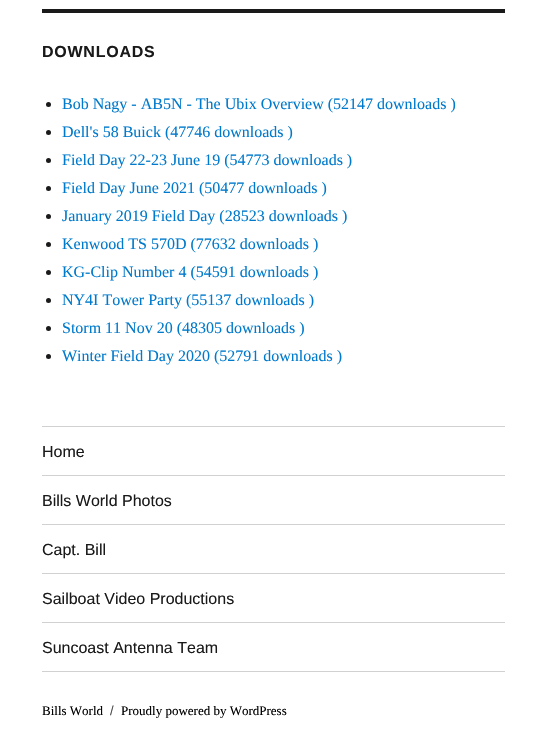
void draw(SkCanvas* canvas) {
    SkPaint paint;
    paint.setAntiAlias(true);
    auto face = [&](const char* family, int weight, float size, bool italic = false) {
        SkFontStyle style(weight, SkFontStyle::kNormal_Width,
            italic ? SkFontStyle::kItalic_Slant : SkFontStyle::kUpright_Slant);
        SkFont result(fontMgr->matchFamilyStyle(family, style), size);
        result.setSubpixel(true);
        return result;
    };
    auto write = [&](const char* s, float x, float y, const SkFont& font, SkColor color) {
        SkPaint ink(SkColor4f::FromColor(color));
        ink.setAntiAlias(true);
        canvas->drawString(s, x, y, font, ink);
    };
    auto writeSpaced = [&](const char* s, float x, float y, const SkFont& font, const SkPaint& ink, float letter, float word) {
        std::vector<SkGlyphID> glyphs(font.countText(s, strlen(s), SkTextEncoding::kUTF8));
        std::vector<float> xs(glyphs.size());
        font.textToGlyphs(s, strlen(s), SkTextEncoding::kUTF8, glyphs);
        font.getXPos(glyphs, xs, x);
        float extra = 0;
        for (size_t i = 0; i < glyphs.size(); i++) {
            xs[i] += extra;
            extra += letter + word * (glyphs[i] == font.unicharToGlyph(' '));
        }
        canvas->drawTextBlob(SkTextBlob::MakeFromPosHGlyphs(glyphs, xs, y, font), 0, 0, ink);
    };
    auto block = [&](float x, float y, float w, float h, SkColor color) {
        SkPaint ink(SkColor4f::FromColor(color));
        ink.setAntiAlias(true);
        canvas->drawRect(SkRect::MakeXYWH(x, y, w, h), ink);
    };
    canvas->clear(SK_ColorWHITE);
    block(42, 9, 463, 4, SkColorSetRGB(26, 26, 26));
    auto kFont1 = face("Liberation Sans", 700, 16);
    paint.setColor(SkColorSetRGB(26, 26, 26));
    writeSpaced("DOWNLOADS", 42, 57, kFont1, paint, 0.75f, 0);
    canvas->drawCircle(48.5f, 104.5f, 2.5f, paint);
    auto kFont2 = face("Liberation Serif", 400, 16);
    write("Bob Nagy - AB5N - The Ubix Overview (52147 downloads )", 62, 109, kFont2, SkColorSetRGB(0, 122, 204));
    canvas->drawCircle(48.5f, 132.5f, 2.5f, paint);
    write("Dell's 58 Buick (47746 downloads )", 62, 137, kFont2, SkColorSetRGB(0, 122, 204));
    canvas->drawCircle(48.5f, 160.5f, 2.5f, paint);
    write("Field Day 22-23 June 19 (54773 downloads )", 62, 165, kFont2, SkColorSetRGB(0, 122, 204));
    canvas->drawCircle(48.5f, 188.5f, 2.5f, paint);
    write("Field Day June 2021 (50477 downloads )", 62, 193, kFont2, SkColorSetRGB(0, 122, 204));
    canvas->drawCircle(48.5f, 216.5f, 2.5f, paint);
    write("January 2019 Field Day (28523 downloads )", 62, 221, kFont2, SkColorSetRGB(0, 122, 204));
    canvas->drawCircle(48.5f, 244.5f, 2.5f, paint);
    write("Kenwood TS 570D (77632 downloads )", 62, 249, kFont2, SkColorSetRGB(0, 122, 204));
    canvas->drawCircle(48.5f, 272.5f, 2.5f, paint);
    write("KG-Clip Number 4 (54591 downloads )", 62, 277, kFont2, SkColorSetRGB(0, 122, 204));
    canvas->drawCircle(48.5f, 300.5f, 2.5f, paint);
    write("NY4I Tower Party (55137 downloads )", 62, 305, kFont2, SkColorSetRGB(0, 122, 204));
    canvas->drawCircle(48.5f, 328.5f, 2.5f, paint);
    write("Storm 11 Nov 20 (48305 downloads )", 62, 333, kFont2, SkColorSetRGB(0, 122, 204));
    canvas->drawCircle(48.5f, 356.5f, 2.5f, paint);
    write("Winter Field Day 2020 (52791 downloads )", 62, 361, kFont2, SkColorSetRGB(0, 122, 204));
    block(42, 671, 463, 1, SkColorSetRGB(209, 209, 209));
    block(42, 426, 463, 1, SkColorSetRGB(209, 209, 209));
    auto kFont3 = face("Liberation Sans", 400, 16);
    write("Home", 42, 457, kFont3, SkColorSetRGB(26, 26, 26));
    block(42, 475, 463, 1, SkColorSetRGB(209, 209, 209));
    write("Bills World Photos", 42, 506, kFont3, SkColorSetRGB(26, 26, 26));
    block(42, 524, 463, 1, SkColorSetRGB(209, 209, 209));
    write("Capt. Bill", 42, 555, kFont3, SkColorSetRGB(26, 26, 26));
    block(42, 573, 463, 1, SkColorSetRGB(209, 209, 209));
    write("Sailboat Video Productions", 42, 604, kFont3, SkColorSetRGB(26, 26, 26));
    block(42, 622, 463, 1, SkColorSetRGB(209, 209, 209));
    write("Suncoast Antenna Team", 42, 653, kFont3, SkColorSetRGB(26, 26, 26));
    auto kFont4 = face("Liberation Serif", 400, 13);
    write("Bills World", 42, 715, kFont4, SK_ColorBLACK);
    auto kFont5 = face("Liberation Sans", 400, 13);
    write("/", 110, 715, kFont5, SkColorSetRGB(77, 77, 77));
    write("Proudly powered by WordPress", 121, 715, kFont4, SK_ColorBLACK);
}
